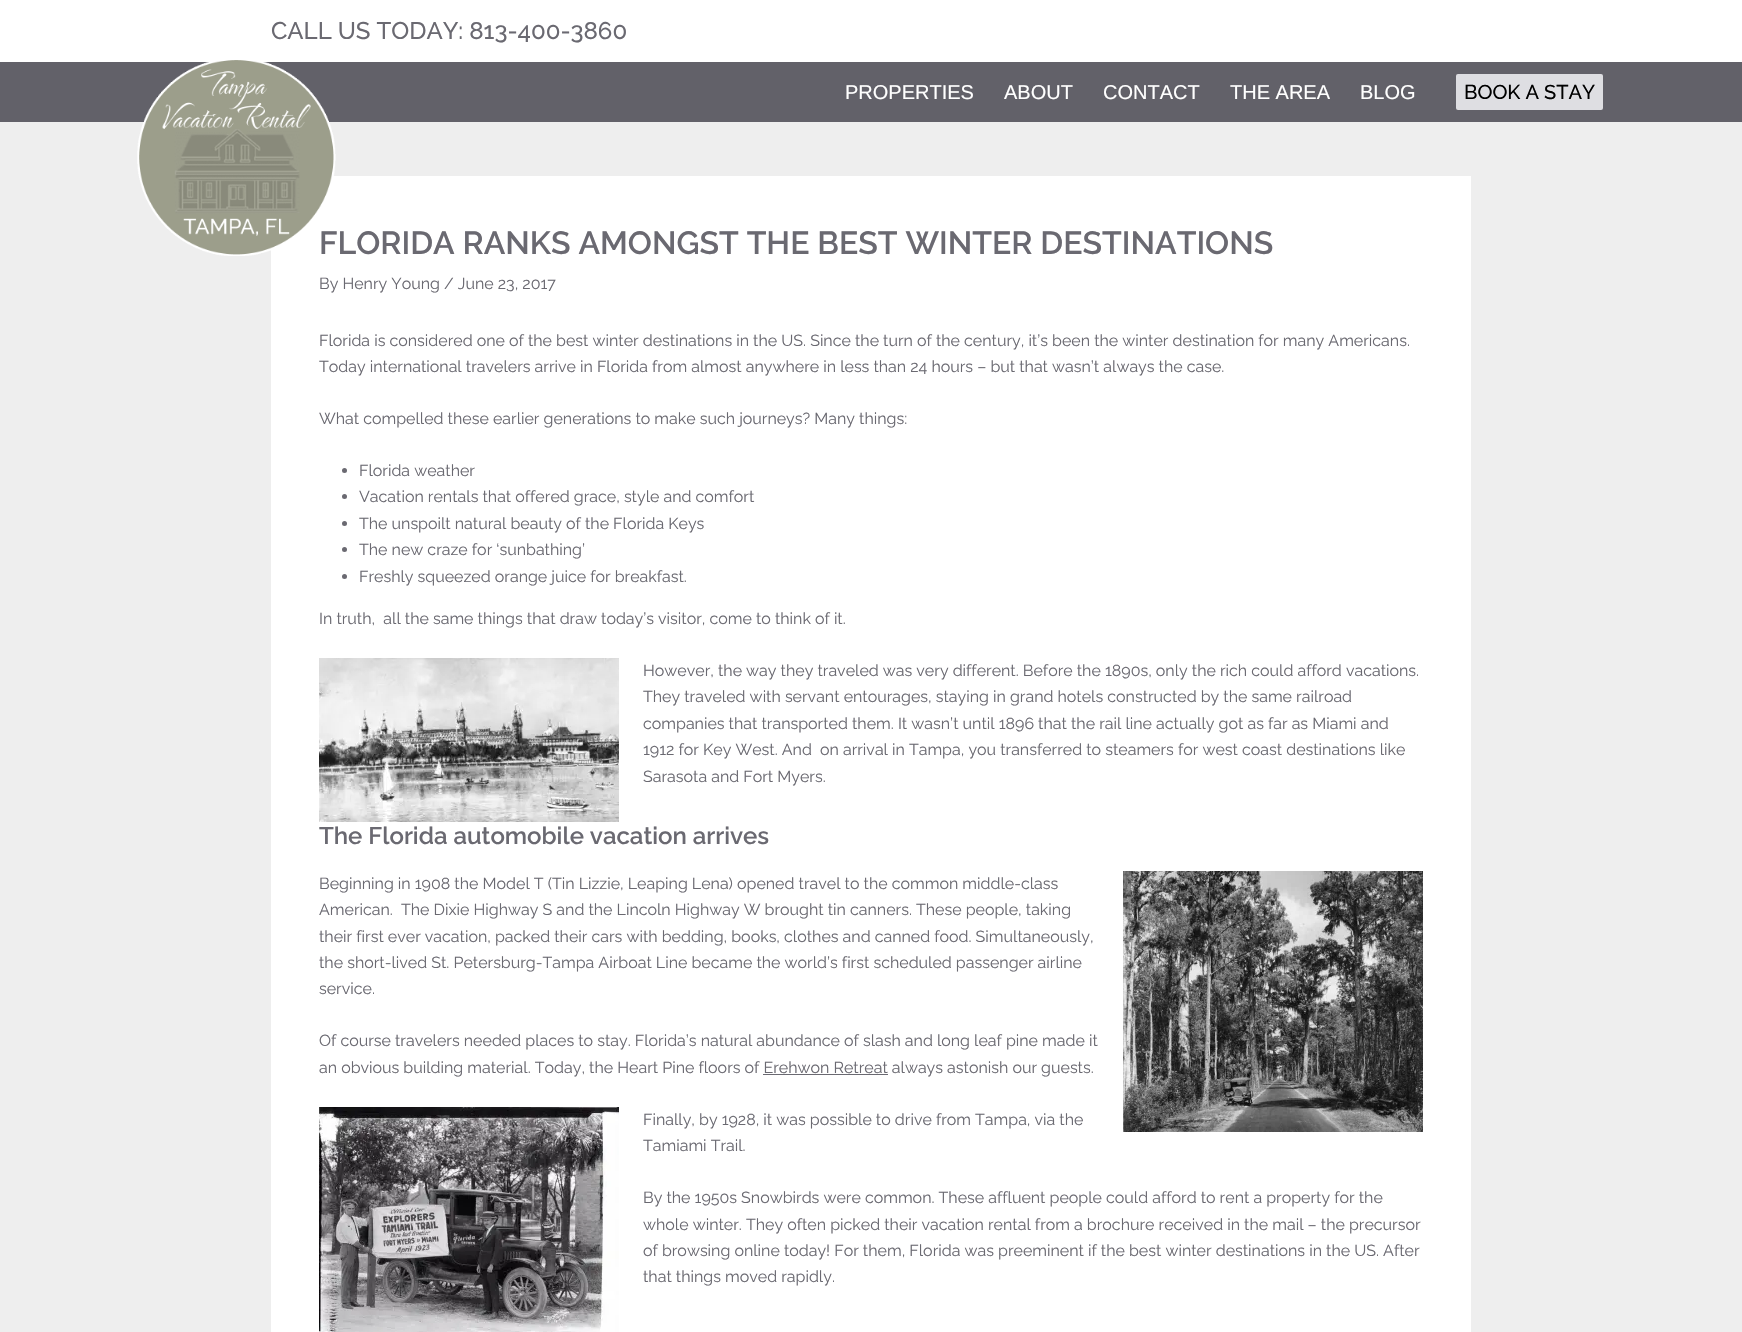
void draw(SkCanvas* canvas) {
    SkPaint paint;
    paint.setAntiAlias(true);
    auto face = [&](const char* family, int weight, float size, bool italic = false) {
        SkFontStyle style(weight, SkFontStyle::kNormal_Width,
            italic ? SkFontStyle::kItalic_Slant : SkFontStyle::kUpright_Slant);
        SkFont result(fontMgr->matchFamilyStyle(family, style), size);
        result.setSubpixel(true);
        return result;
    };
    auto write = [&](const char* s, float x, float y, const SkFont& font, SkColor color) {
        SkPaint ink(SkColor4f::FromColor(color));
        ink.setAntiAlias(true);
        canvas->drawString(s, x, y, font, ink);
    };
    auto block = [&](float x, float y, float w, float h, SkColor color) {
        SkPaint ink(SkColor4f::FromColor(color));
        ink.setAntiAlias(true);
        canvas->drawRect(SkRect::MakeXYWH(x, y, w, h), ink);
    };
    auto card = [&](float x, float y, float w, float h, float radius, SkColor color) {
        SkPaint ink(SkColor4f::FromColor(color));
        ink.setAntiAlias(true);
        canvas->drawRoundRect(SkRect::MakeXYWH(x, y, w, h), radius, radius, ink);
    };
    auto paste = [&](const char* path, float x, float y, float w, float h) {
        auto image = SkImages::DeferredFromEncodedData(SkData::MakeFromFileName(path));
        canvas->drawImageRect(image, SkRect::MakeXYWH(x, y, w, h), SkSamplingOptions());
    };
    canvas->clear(SkColorSetRGB(238, 238, 238));
    block(0, 0, 1742, 62, SK_ColorWHITE);
    auto kFont1 = face("Raleway", 500, 24);
    write("CALL US TODAY: 813-400-3860", 271, 39, kFont1, SkColorSetRGB(106, 105, 113));
    block(0, 62, 1742, 60, SkColorSetRGB(98, 97, 105));
    block(271, 176, 1200, 1156, SK_ColorWHITE);
    auto kFont2 = face("Raleway", 600, 32);
    write("FLORIDA RANKS AMONGST THE BEST WINTER DESTINATIONS", 319, 254, kFont2, SkColorSetRGB(106, 105, 113));
    paste("pic1.png", 137, 60, 199, 196);
    auto kFont3 = face("Liberation Sans", 400, 20);
    write("PROPERTIES", 845, 99, kFont3, SK_ColorWHITE);
    write("ABOUT", 1004, 99, kFont3, SK_ColorWHITE);
    write("CONTACT", 1103, 99, kFont3, SK_ColorWHITE);
    write("THE AREA", 1230, 99, kFont3, SK_ColorWHITE);
    write("BLOG", 1360, 99, kFont3, SK_ColorWHITE);
    card(1456, 74, 147, 36, 2, SkColorSetRGB(222, 222, 226));
    auto kFont4 = face("Raleway", 500, 20);
    write("BOOK A STAY", 1464, 99, kFont4, SK_ColorBLACK);
    auto kFont5 = face("Raleway", 400, 16);
    write("By Henry Young / June 23, 2017", 319, 289, kFont5, SkColorSetRGB(106, 105, 113));
    write("Florida is considered one of the best winter destinations in the US. Since the turn of the century, it’s been the winter destination for many Americans.", 319, 346, kFont5, SkColorSetRGB(106, 105, 113));
    write("Today international travelers arrive in Florida from almost anywhere in less than 24 hours – but that wasn’t always the case.", 319, 372, kFont5, SkColorSetRGB(106, 105, 113));
    write("What compelled these earlier generations to make such journeys? Many things:", 319, 424, kFont5, SkColorSetRGB(106, 105, 113));
    paint.setColor(SkColorSetRGB(106, 105, 113));
    canvas->drawCircle(344.5f, 470.5f, 2.5f, paint);
    write("Florida weather", 359, 476, kFont5, SkColorSetRGB(106, 105, 113));
    canvas->drawCircle(344.5f, 496.5f, 2.5f, paint);
    write("Vacation rentals that offered grace, style and comfort", 359, 502, kFont5, SkColorSetRGB(106, 105, 113));
    canvas->drawCircle(344.5f, 523.5f, 2.5f, paint);
    write("The unspoilt natural beauty of the Florida Keys", 359, 529, kFont5, SkColorSetRGB(106, 105, 113));
    canvas->drawCircle(344.5f, 549.5f, 2.5f, paint);
    write("The new craze for ‘sunbathing’", 359, 555, kFont5, SkColorSetRGB(106, 105, 113));
    canvas->drawCircle(344.5f, 576.5f, 2.5f, paint);
    write("Freshly squeezed orange juice for breakfast.", 359, 582, kFont5, SkColorSetRGB(106, 105, 113));
    write("In truth,  all the same things that draw today’s visitor, come to think of it.", 319, 624, kFont5, SkColorSetRGB(106, 105, 113));
    paste("pic2.png", 319, 658, 300, 164);
    write("However, the way they traveled was very different. Before the 1890s, only the rich could afford vacations.", 643, 676, kFont5, SkColorSetRGB(106, 105, 113));
    write("They traveled with servant entourages, staying in grand hotels constructed by the same railroad", 643, 702, kFont5, SkColorSetRGB(106, 105, 113));
    write("companies that transported them. It wasn’t until 1896 that the rail line actually got as far as Miami and", 643, 729, kFont5, SkColorSetRGB(106, 105, 113));
    write("1912 for Key West. And  on arrival in Tampa, you transferred to steamers for west coast destinations like", 643, 755, kFont5, SkColorSetRGB(106, 105, 113));
    write("Sarasota and Fort Myers.", 643, 782, kFont5, SkColorSetRGB(106, 105, 113));
    auto kFont6 = face("Raleway", 600, 24);
    write("The Florida automobile vacation arrives", 319, 844, kFont6, SkColorSetRGB(106, 105, 113));
    write("Beginning in 1908 the Model T (Tin Lizzie, Leaping Lena) opened travel to the common middle-class", 319, 889, kFont5, SkColorSetRGB(106, 105, 113));
    paste("pic3.png", 1123, 871, 300, 261);
    write("American.  The Dixie Highway S and the Lincoln Highway W brought tin canners. These people, taking", 319, 915, kFont5, SkColorSetRGB(106, 105, 113));
    write("their first ever vacation, packed their cars with bedding, books, clothes and canned food. Simultaneously,", 319, 942, kFont5, SkColorSetRGB(106, 105, 113));
    write("the short-lived St. Petersburg-Tampa Airboat Line became the world’s first scheduled passenger airline", 319, 968, kFont5, SkColorSetRGB(106, 105, 113));
    write("service.", 319, 994, kFont5, SkColorSetRGB(106, 105, 113));
    write("Of course travelers needed places to stay. Florida’s natural abundance of slash and long leaf pine made it", 319, 1046, kFont5, SkColorSetRGB(106, 105, 113));
    write("an obvious building material. Today, the Heart Pine floors of Erehwon Retreat always astonish our guests.", 319, 1073, kFont5, SkColorSetRGB(106, 105, 113));
    block(763, 1074, 125, 1, SkColorSetRGB(106, 105, 113));
    paste("pic4.png", 319, 1107, 300, 225);
    write("Finally, by 1928, it was possible to drive from Tampa, via the", 643, 1125, kFont5, SkColorSetRGB(106, 105, 113));
    write("Tamiami Trail.", 643, 1151, kFont5, SkColorSetRGB(106, 105, 113));
    write("By the 1950s Snowbirds were common. These affluent people could afford to rent a property for the", 643, 1203, kFont5, SkColorSetRGB(106, 105, 113));
    write("whole winter. They often picked their vacation rental from a brochure received in the mail – the precursor", 643, 1230, kFont5, SkColorSetRGB(106, 105, 113));
    write("of browsing online today! For them, Florida was preeminent if the best winter destinations in the US. After", 643, 1256, kFont5, SkColorSetRGB(106, 105, 113));
    write("that things moved rapidly.", 643, 1282, kFont5, SkColorSetRGB(106, 105, 113));
}
